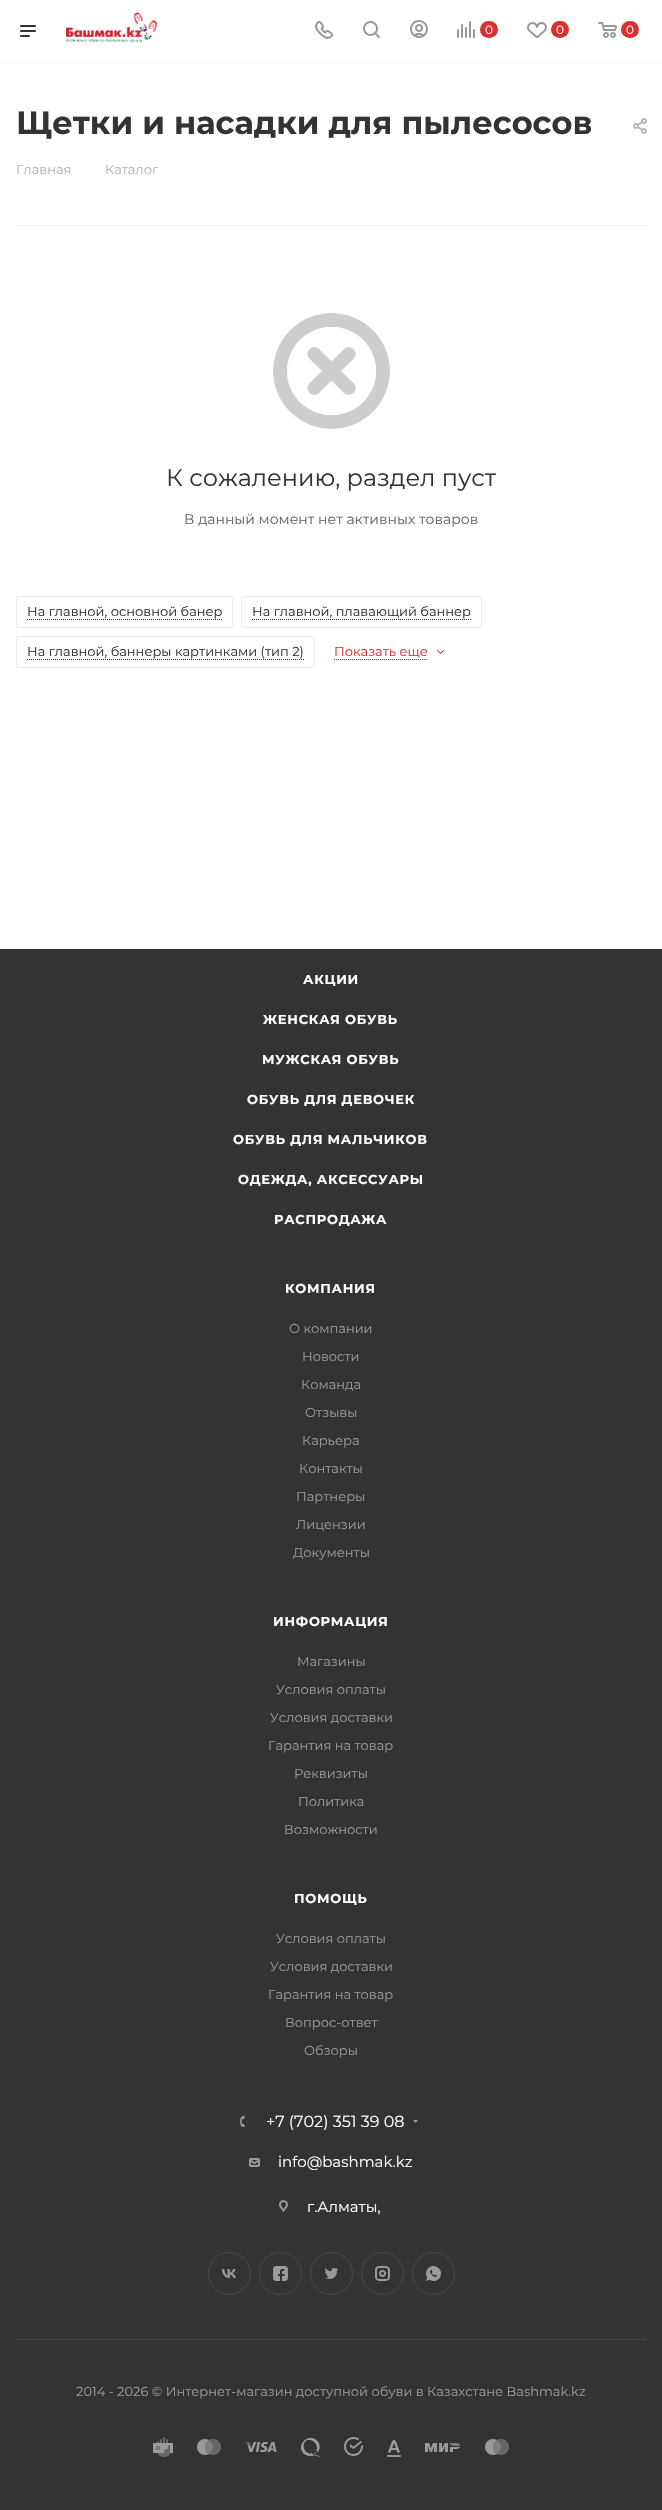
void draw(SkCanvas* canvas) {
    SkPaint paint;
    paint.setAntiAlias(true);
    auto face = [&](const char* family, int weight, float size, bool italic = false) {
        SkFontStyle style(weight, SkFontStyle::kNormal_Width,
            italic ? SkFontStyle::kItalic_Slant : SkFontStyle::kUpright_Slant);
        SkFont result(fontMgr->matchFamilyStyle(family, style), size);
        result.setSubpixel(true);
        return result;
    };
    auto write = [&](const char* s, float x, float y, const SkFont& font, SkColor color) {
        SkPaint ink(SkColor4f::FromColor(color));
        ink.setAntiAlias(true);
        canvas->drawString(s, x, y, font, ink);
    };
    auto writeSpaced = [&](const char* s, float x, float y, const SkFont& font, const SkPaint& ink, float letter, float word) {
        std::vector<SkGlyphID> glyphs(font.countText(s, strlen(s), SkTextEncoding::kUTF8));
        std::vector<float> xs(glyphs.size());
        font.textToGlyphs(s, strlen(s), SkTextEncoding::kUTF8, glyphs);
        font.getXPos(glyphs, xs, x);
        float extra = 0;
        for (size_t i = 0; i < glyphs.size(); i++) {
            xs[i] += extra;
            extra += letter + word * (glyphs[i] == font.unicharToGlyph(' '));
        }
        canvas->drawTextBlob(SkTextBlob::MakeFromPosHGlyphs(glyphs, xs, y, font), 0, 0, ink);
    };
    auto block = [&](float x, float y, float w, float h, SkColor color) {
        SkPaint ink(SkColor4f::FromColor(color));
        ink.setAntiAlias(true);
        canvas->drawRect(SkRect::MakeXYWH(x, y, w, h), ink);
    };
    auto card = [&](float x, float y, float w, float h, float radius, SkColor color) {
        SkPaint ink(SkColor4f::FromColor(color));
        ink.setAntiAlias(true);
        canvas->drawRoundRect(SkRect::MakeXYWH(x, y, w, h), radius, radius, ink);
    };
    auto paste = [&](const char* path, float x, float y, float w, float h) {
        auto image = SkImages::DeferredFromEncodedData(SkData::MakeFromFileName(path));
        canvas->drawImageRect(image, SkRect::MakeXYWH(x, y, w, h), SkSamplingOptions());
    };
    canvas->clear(SK_ColorWHITE);
    block(0, 62, 662, 1, SkColorSetRGB(248, 248, 248));
    paste("pic1.png", 20, 25, 16, 12);
    paste("pic2.png", 65, 12, 92, 31);
    paste("pic3.png", 315, 21, 18, 18);
    paste("pic4.png", 363, 21, 17, 17);
    paste("pic5.png", 410, 20, 18, 18);
    paste("pic6.png", 457, 21, 18, 17);
    card(480, 21, 18, 17, 8.5f, SkColorSetRGB(220, 47, 47));
    auto kFont1 = face("Montserrat", 400, 12);
    write("0", 485, 34, kFont1, SK_ColorWHITE);
    paste("pic7.png", 527, 22, 20, 16);
    card(551, 21, 18, 17, 8.5f, SkColorSetRGB(220, 47, 47));
    write("0", 556, 34, kFont1, SK_ColorWHITE);
    paste("pic8.png", 598, 22, 19, 16);
    card(621, 21, 18, 17, 8.5f, SkColorSetRGB(220, 47, 47));
    write("0", 626, 34, kFont1, SK_ColorWHITE);
    auto kFont2 = face("Montserrat", 700, 32);
    write("Щетки и насадки для пылесосов", 16, 134, kFont2, SkColorSetRGB(51, 51, 51));
    paste("pic9.png", 633, 118, 14, 16);
    auto kFont3 = face("Montserrat", 400, 13);
    write("Главная", 16, 174, kFont3, SkColorSetRGB(182, 181, 181));
    write("Каталог", 105, 174, kFont3, SkColorSetRGB(182, 181, 181));
    block(16, 225, 630, 1, SkColorSetRGB(238, 238, 238));
    paste("pic10.png", 273, 313, 117, 116);
    auto kFont4 = face("Montserrat", 400, 24);
    write("К сожалению, раздел пуст", 166, 486, kFont4, SkColorSetRGB(51, 51, 51));
    auto kFont5 = face("Montserrat", 400, 14);
    write("В данный момент нет активных товаров", 184, 524, kFont5, SkColorSetRGB(102, 102, 102));
    paint.setStyle(SkPaint::kStroke_Style);
    paint.setStrokeWidth(1);
    paint.setColor(SkColorSetRGB(236, 236, 236));
    canvas->drawRoundRect(SkRect::MakeXYWH(16.5f, 596.5f, 216, 31), 2.5f, 2.5f, paint);
    write("На главной, основной банер", 27, 616, kFont3, SkColorSetRGB(51, 51, 51));
    paint.setColor(SkColorSetRGB(51, 51, 51));
    paint.setPathEffect(SkDashPathEffect::Make({{1, 1}}, 0));
    canvas->drawPath(SkPathBuilder().moveTo(27, 619.5f).lineTo(222, 619.5f).detach(), paint);
    paint.setPathEffect(nullptr);
    paint.setColor(SkColorSetRGB(236, 236, 236));
    canvas->drawRoundRect(SkRect::MakeXYWH(241.5f, 596.5f, 240, 31), 2.5f, 2.5f, paint);
    write("На главной, плавающий баннер", 252, 616, kFont3, SkColorSetRGB(51, 51, 51));
    paint.setColor(SkColorSetRGB(51, 51, 51));
    paint.setPathEffect(SkDashPathEffect::Make({{1, 1}}, 0));
    canvas->drawPath(SkPathBuilder().moveTo(252, 619.5f).lineTo(471, 619.5f).detach(), paint);
    paint.setPathEffect(nullptr);
    paint.setColor(SkColorSetRGB(236, 236, 236));
    canvas->drawRoundRect(SkRect::MakeXYWH(16.5f, 636.5f, 298, 31), 2.5f, 2.5f, paint);
    write("На главной, баннеры картинками (тип 2)", 27, 656, kFont3, SkColorSetRGB(51, 51, 51));
    paint.setColor(SkColorSetRGB(51, 51, 51));
    paint.setPathEffect(SkDashPathEffect::Make({{1, 1}}, 0));
    canvas->drawPath(SkPathBuilder().moveTo(27, 659.5f).lineTo(304, 659.5f).detach(), paint);
    paint.setPathEffect(nullptr);
    write("Показать еще", 334, 656, kFont3, SkColorSetRGB(220, 47, 47));
    paint.setColor(SkColorSetRGB(220, 47, 47));
    paint.setPathEffect(SkDashPathEffect::Make({{1, 1}}, 0));
    canvas->drawPath(SkPathBuilder().moveTo(334, 659.5f).lineTo(427, 659.5f).detach(), paint);
    paint.setPathEffect(nullptr);
    paste("pic11.png", 437, 650, 7, 4);
    block(0, 949, 662, 1561, SkColorSetRGB(51, 51, 51));
    auto kFont6 = face("Montserrat", 700, 13);
    paint.setStyle(SkPaint::kFill_Style);
    paint.setColor(SK_ColorWHITE);
    writeSpaced("АКЦИИ", 303, 984, kFont6, paint, 0.75f, 0);
    writeSpaced("ЖЕНСКАЯ ОБУВЬ", 263, 1024, kFont6, paint, 0.75f, 0);
    writeSpaced("МУЖСКАЯ ОБУВЬ", 262, 1064, kFont6, paint, 0.75f, 0);
    writeSpaced("ОБУВЬ ДЛЯ ДЕВОЧЕК", 247, 1104, kFont6, paint, 0.75f, 0);
    writeSpaced("ОБУВЬ ДЛЯ МАЛЬЧИКОВ", 233, 1144, kFont6, paint, 0.75f, 0);
    writeSpaced("ОДЕЖДА, АКСЕССУАРЫ", 238, 1184, kFont6, paint, 0.75f, 0);
    writeSpaced("РАСПРОДАЖА", 274, 1224, kFont6, paint, 0.75f, 0);
    writeSpaced("КОМПАНИЯ", 285, 1293, kFont6, paint, 0.75f, 0);
    write("О компании", 289, 1333, kFont3, SkColorSetRGB(153, 153, 153));
    write("Новости", 302, 1361, kFont3, SkColorSetRGB(153, 153, 153));
    write("Команда", 301, 1389, kFont3, SkColorSetRGB(153, 153, 153));
    write("Отзывы", 305, 1417, kFont3, SkColorSetRGB(153, 153, 153));
    write("Карьера", 302, 1445, kFont3, SkColorSetRGB(153, 153, 153));
    write("Контакты", 299, 1473, kFont3, SkColorSetRGB(153, 153, 153));
    write("Партнеры", 296, 1501, kFont3, SkColorSetRGB(153, 153, 153));
    write("Лицензии", 296, 1529, kFont3, SkColorSetRGB(153, 153, 153));
    write("Документы", 293, 1557, kFont3, SkColorSetRGB(153, 153, 153));
    writeSpaced("ИНФОРМАЦИЯ", 273, 1626, kFont6, paint, 0.75f, 0);
    write("Магазины", 297, 1666, kFont3, SkColorSetRGB(153, 153, 153));
    write("Условия оплаты", 276, 1694, kFont3, SkColorSetRGB(153, 153, 153));
    write("Условия доставки", 270, 1722, kFont3, SkColorSetRGB(153, 153, 153));
    write("Гарантия на товар", 268, 1750, kFont3, SkColorSetRGB(153, 153, 153));
    write("Реквизиты", 294, 1778, kFont3, SkColorSetRGB(153, 153, 153));
    write("Политика", 298, 1806, kFont3, SkColorSetRGB(153, 153, 153));
    write("Возможности", 284, 1834, kFont3, SkColorSetRGB(153, 153, 153));
    writeSpaced("ПОМОЩЬ", 294, 1903, kFont6, paint, 0.75f, 0);
    write("Условия оплаты", 276, 1943, kFont3, SkColorSetRGB(153, 153, 153));
    write("Условия доставки", 270, 1971, kFont3, SkColorSetRGB(153, 153, 153));
    write("Гарантия на товар", 268, 1999, kFont3, SkColorSetRGB(153, 153, 153));
    write("Вопрос-ответ", 285, 2027, kFont3, SkColorSetRGB(153, 153, 153));
    write("Обзоры", 304, 2055, kFont3, SkColorSetRGB(153, 153, 153));
    paste("pic12.png", 240, 2116, 5, 11);
    auto kFont7 = face("Montserrat", 400, 16);
    write("+7 (702) 351 39 08", 266, 2127, kFont7, SK_ColorWHITE);
    paint.setColor(SkColorSetRGB(153, 153, 153));
    canvas->drawPath(SkPathBuilder(SkPathFillType::kEvenOdd).moveTo(413, 2120).lineTo(418, 2120).lineTo(415.5f, 2123).close().detach(), paint);
    paste("pic13.png", 249, 2158, 11, 9);
    auto kFont8 = face("Montserrat", 400, 15);
    write("info@bashmak.kz", 278, 2167, kFont8, SK_ColorWHITE);
    paste("pic14.png", 279, 2200, 9, 12);
    write("г.Алматы,", 307, 2212, kFont8, SK_ColorWHITE);
    paste("pic15.png", 222, 2269, 14, 9);
    paint.setStyle(SkPaint::kStroke_Style);
    paint.setColor(SkColorSetRGB(71, 71, 71));
    canvas->drawCircle(229.5f, 2273.5f, 21, paint);
    paste("pic16.png", 273, 2266, 15, 15);
    canvas->drawCircle(280.5f, 2273.5f, 21, paint);
    paste("pic17.png", 325, 2268, 13, 11);
    canvas->drawCircle(331.5f, 2273.5f, 21, paint);
    paste("pic18.png", 375, 2266, 15, 15);
    canvas->drawCircle(382.5f, 2273.5f, 21, paint);
    paste("pic19.png", 426, 2266, 15, 15);
    canvas->drawCircle(433.5f, 2273.5f, 21, paint);
    block(16, 2339, 630, 1, SkColorSetRGB(67, 67, 67));
    write("2014 - 2026 © Интернет-магазин доступной обуви в Казахстане Bashmak.kz", 76, 2396, kFont3, SkColorSetRGB(153, 153, 153));
    paste("pic20.png", 153, 2437, 20, 20);
    paste("pic21.png", 197, 2439, 24, 16);
    paste("pic22.png", 245, 2442, 32, 10);
    paste("pic23.png", 301, 2438, 19, 19);
    paste("pic24.png", 344, 2437, 19, 19);
    paste("pic25.png", 387, 2440, 14, 17);
    paste("pic26.png", 425, 2443, 35, 9);
    paste("pic21.png", 485, 2439, 24, 16);
}
